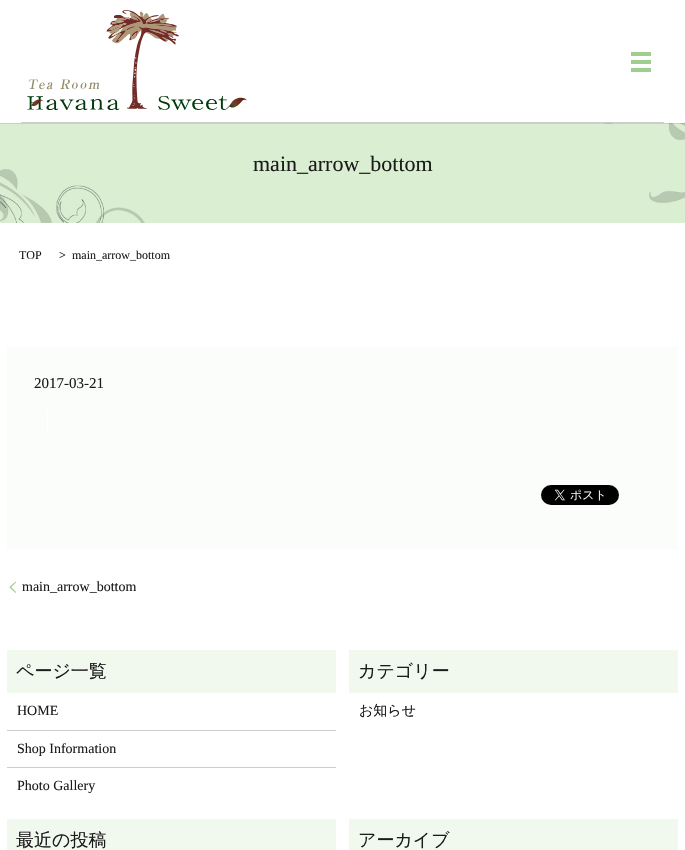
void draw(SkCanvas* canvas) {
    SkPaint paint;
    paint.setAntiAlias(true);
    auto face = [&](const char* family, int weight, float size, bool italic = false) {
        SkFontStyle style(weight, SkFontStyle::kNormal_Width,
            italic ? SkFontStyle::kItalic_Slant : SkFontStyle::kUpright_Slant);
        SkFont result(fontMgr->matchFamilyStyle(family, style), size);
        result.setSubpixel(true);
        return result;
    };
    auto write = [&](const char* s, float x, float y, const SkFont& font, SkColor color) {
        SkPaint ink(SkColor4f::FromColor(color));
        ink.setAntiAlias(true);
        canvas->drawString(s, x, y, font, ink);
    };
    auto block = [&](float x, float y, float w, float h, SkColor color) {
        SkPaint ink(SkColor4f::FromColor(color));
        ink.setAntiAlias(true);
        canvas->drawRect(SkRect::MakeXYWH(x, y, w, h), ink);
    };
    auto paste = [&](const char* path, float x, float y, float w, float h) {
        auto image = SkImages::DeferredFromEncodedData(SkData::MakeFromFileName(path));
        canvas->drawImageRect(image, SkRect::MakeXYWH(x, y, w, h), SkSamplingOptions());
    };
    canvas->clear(SK_ColorWHITE);
    block(0, 123, 685, 100, SkColorSetRGB(218, 238, 210));
    paste("pic2.png", 604, 123, 81, 80);
    canvas->save();
    canvas->clipRect(SkRect::MakeXYWH(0, 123, 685, 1));
    paint.setColor(SkColorSetARGB(26, 0, 0, 0));
    paint.setMaskFilter(SkMaskFilter::MakeBlur(kNormal_SkBlurStyle, 0.5f));
    canvas->drawRect(SkRect::MakeXYWH(0, 1, 685, 123), paint);
    paint.setMaskFilter(nullptr);
    canvas->restore();
    paste("pic1.png", 27, 10, 220, 100);
    block(21, 122, 643, 1, SkColorSetRGB(204, 204, 204));
    block(631, 52, 20, 4, SkColorSetRGB(159, 207, 142));
    block(631, 60, 20, 4, SkColorSetRGB(159, 207, 142));
    block(631, 68, 20, 4, SkColorSetRGB(159, 207, 142));
    auto kFont1 = face("Liberation Serif", 400, 22);
    write("main_arrow_bottom", 253, 171, kFont1, SkColorSetRGB(27, 27, 27));
    paste("pic3.png", 0, 169, 145, 54);
    auto kFont2 = face("Liberation Serif", 400, 12);
    write("TOP", 19, 259, kFont2, SkColorSetRGB(27, 27, 27));
    write(">", 59, 259, kFont2, SkColorSetRGB(27, 27, 27));
    write("main_arrow_bottom", 72, 259, kFont2, SkColorSetRGB(27, 27, 27));
    block(7, 346, 671, 204, SkColorSetRGB(251, 253, 250));
    auto kFont3 = face("Liberation Serif", 400, 15);
    write("2017-03-21", 34, 388, kFont3, SkColorSetRGB(27, 27, 27));
    block(47, 409, 1, 26, SK_ColorWHITE);
    paste("pic4.png", 541, 485, 78, 20);
    paint.setColor(SkColorSetRGB(159, 207, 142));
    canvas->drawPath(SkPathBuilder().moveTo(9.5f, 587).lineTo(15.5f, 581.5f).lineTo(16, 582.5f).lineTo(10.5f, 588).close().detach(), paint);
    auto kFont4 = face("Liberation Serif", 400, 14);
    write("main_arrow_bottom", 22, 591, kFont4, SkColorSetRGB(27, 27, 27));
    canvas->drawPath(SkPathBuilder().moveTo(15.5f, 593).lineTo(9.5f, 587.5f).lineTo(10.5f, 586.5f).lineTo(16, 592).close().detach(), paint);
    block(7, 650, 329, 43, SkColorSetRGB(241, 248, 238));
    auto kFont5 = face("WenQuanYi Zen Hei", 500, 18);
    write("ページ一覧", 16, 677, kFont5, SkColorSetRGB(27, 27, 27));
    block(7, 730, 329, 1, SkColorSetRGB(204, 204, 204));
    write("HOME", 17, 715, kFont4, SkColorSetRGB(27, 27, 27));
    block(7, 767, 329, 1, SkColorSetRGB(204, 204, 204));
    write("Shop Information", 17, 753, kFont4, SkColorSetRGB(27, 27, 27));
    write("Photo Gallery", 17, 790, kFont4, SkColorSetRGB(27, 27, 27));
    block(349, 650, 329, 43, SkColorSetRGB(241, 248, 238));
    write("カテゴリー", 358, 677, kFont5, SkColorSetRGB(27, 27, 27));
    auto kFont6 = face("WenQuanYi Zen Hei", 500, 14);
    write("お知らせ", 359, 715, kFont6, SkColorSetRGB(27, 27, 27));
    block(7, 819, 329, 31, SkColorSetRGB(241, 248, 238));
    write("最近の投稿", 16, 846, kFont5, SkColorSetRGB(27, 27, 27));
    block(349, 819, 329, 31, SkColorSetRGB(241, 248, 238));
    write("アーカイブ", 358, 846, kFont5, SkColorSetRGB(27, 27, 27));
}
